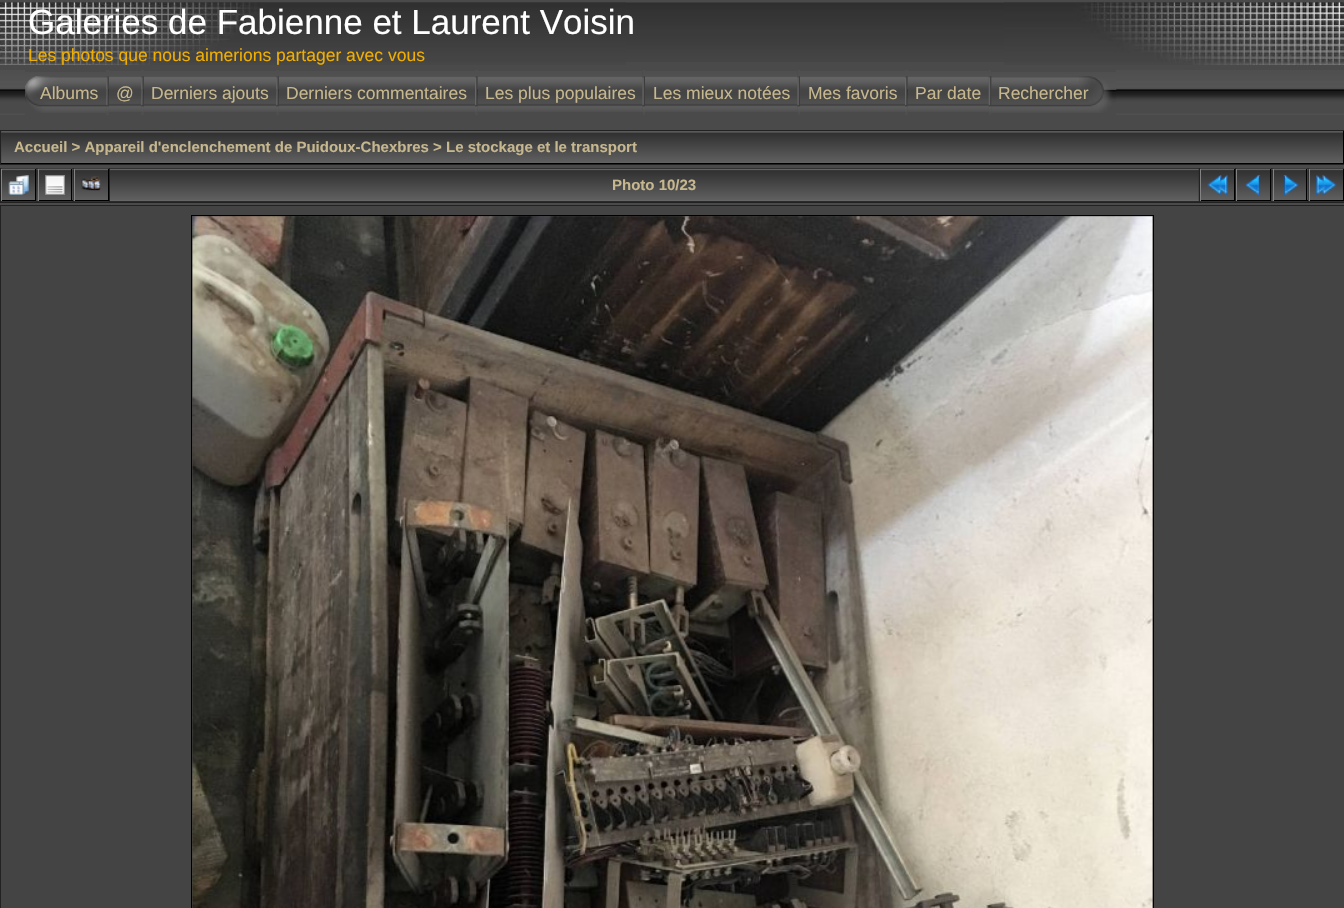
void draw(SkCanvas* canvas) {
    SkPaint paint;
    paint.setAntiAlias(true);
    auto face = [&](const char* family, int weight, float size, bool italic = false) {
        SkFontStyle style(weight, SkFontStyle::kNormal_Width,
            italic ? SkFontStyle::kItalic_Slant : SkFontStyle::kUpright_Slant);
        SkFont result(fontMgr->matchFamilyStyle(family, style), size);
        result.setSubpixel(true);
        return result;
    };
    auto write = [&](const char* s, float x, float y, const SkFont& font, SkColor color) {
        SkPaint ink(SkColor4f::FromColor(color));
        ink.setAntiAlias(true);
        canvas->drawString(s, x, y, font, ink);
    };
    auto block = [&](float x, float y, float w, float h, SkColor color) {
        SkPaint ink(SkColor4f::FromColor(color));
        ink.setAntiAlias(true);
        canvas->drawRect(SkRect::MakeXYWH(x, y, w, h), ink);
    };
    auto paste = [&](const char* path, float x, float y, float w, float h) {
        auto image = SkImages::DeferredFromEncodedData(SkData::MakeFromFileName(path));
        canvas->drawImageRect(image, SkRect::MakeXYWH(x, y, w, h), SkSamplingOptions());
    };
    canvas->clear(SkColorSetRGB(74, 74, 74));
    paste("pic1.png", 0, 2, 1344, 60);
    paste("pic2.png", 0, 2, 626, 63);
    paste("pic3.png", 1004, 2, 340, 63);
    auto kFont1 = face("Liberation Sans", 400, 35);
    write("Galeries de Fabienne et Laurent Voisin", 28, 34, kFont1, SK_ColorWHITE);
    auto kFont2 = face("Liberation Sans", 400, 17.5f);
    write("Les photos que nous aimerions partager avec vous", 28, 61, kFont2, SkColorSetRGB(240, 175, 0));
    paste("pic4.png", 0, 70, 1344, 45);
    block(25, 70, 81, 45, SkColorSetRGB(74, 74, 74));
    paste("pic5.png", 25, 72, 82, 41);
    write("Albums", 40, 99, kFont2, SkColorSetRGB(198, 183, 142));
    block(109, 70, 32, 45, SkColorSetRGB(74, 74, 74));
    paste("pic7.png", 108, 71, 34, 41);
    paste("pic6.png", 106, 76, 3, 37);
    write("@", 116, 99, kFont2, SkColorSetRGB(198, 183, 142));
    block(144, 70, 132, 45, SkColorSetRGB(74, 74, 74));
    paste("pic9.png", 143, 71, 134, 41);
    paste("pic8.png", 141, 76, 3, 37);
    write("Derniers ajouts", 151, 99, kFont2, SkColorSetRGB(198, 183, 142));
    block(279, 70, 196, 45, SkColorSetRGB(74, 74, 74));
    paste("pic10.png", 278, 71, 197, 41);
    paste("pic8.png", 276, 76, 3, 37);
    write("Derniers commentaires", 286, 99, kFont2, SkColorSetRGB(198, 183, 142));
    block(478, 70, 165, 45, SkColorSetRGB(74, 74, 74));
    paste("pic12.png", 477, 71, 166, 41);
    paste("pic11.png", 475, 76, 3, 37);
    write("Les plus populaires", 485, 99, kFont2, SkColorSetRGB(198, 183, 142));
    paste("pic13.png", 642, 76, 3, 37);
    block(645, 70, 153, 45, SkColorSetRGB(74, 74, 74));
    paste("pic14.png", 645, 71, 153, 41);
    write("Les mieux notées", 653, 99, kFont2, SkColorSetRGB(198, 183, 142));
    paste("pic13.png", 797, 76, 3, 37);
    block(800, 70, 105, 45, SkColorSetRGB(74, 74, 74));
    paste("pic15.png", 800, 71, 105, 41);
    write("Mes favoris", 808, 99, kFont2, SkColorSetRGB(198, 183, 142));
    block(908, 70, 81, 45, SkColorSetRGB(74, 74, 74));
    paste("pic16.png", 907, 71, 82, 41);
    paste("pic11.png", 905, 76, 3, 37);
    write("Par date", 915, 99, kFont2, SkColorSetRGB(198, 183, 142));
    block(991, 70, 125, 45, SkColorSetRGB(74, 74, 74));
    paste("pic18.png", 991, 72, 126, 41);
    paste("pic17.png", 988, 76, 4, 37);
    write("Rechercher", 998, 99, kFont2, SkColorSetRGB(198, 183, 142));
    block(0, 130, 1344, 35, SkColorSetRGB(34, 34, 34));
    block(1, 131, 1342, 32, SkColorSetRGB(63, 63, 63));
    paste("pic19.png", 1, 131, 1342, 32);
    block(1343, 131, 1, 33, SK_ColorBLACK);
    block(1, 163, 1343, 1, SK_ColorBLACK);
    auto kFont3 = face("Liberation Sans", 700, 15);
    write("Accueil > Appareil d'enclenchement de Puidoux-Chexbres > Le stockage et le transport", 14, 152, kFont3, SkColorSetRGB(198, 183, 142));
    block(0, 168, 1344, 35, SkColorSetRGB(34, 34, 34));
    paste("pic20.png", 1, 168, 36, 34);
    paste("pic21.png", 1, 168, 36, 34);
    block(35, 169, 1, 32, SK_ColorBLACK);
    block(1, 200, 35, 1, SK_ColorBLACK);
    block(1, 169, 1, 32, SkColorSetRGB(131, 131, 131));
    paste("pic22.png", 8, 175, 21, 20);
    paste("pic23.png", 37, 168, 36, 34);
    block(72, 169, 1, 31, SkColorSetRGB(63, 63, 63));
    paste("pic24.png", 37, 168, 36, 34);
    block(71, 169, 1, 32, SK_ColorBLACK);
    block(38, 200, 35, 1, SK_ColorBLACK);
    block(38, 169, 1, 32, SkColorSetRGB(131, 131, 131));
    paste("pic25.png", 45, 175, 20, 20);
    paste("pic26.png", 73, 168, 36, 34);
    paste("pic27.png", 73, 168, 36, 34);
    block(108, 169, 1, 32, SK_ColorBLACK);
    block(74, 200, 35, 1, SK_ColorBLACK);
    block(74, 169, 1, 32, SkColorSetRGB(131, 131, 131));
    paste("pic28.png", 81, 176, 20, 15);
    paste("pic29.png", 110, 168, 1089, 34);
    write("Photo 10/23", 612, 190, kFont3, SkColorSetRGB(198, 183, 142));
    paste("pic30.png", 1200, 168, 35, 34);
    paste("pic31.png", 1200, 168, 35, 34);
    block(1234, 169, 1, 32, SK_ColorBLACK);
    block(1200, 200, 35, 1, SK_ColorBLACK);
    block(1200, 169, 1, 32, SkColorSetRGB(131, 131, 131));
    paste("pic32.png", 1207, 175, 21, 20);
    paste("pic20.png", 1236, 168, 36, 34);
    paste("pic21.png", 1236, 168, 36, 34);
    block(1270, 169, 1, 32, SK_ColorBLACK);
    block(1236, 200, 35, 1, SK_ColorBLACK);
    block(1236, 169, 1, 32, SkColorSetRGB(131, 131, 131));
    paste("pic33.png", 1245, 175, 16, 20);
    paste("pic23.png", 1272, 168, 36, 34);
    block(1307, 169, 1, 31, SkColorSetRGB(63, 63, 63));
    paste("pic24.png", 1272, 168, 36, 34);
    block(1306, 169, 1, 32, SK_ColorBLACK);
    block(1273, 200, 35, 1, SK_ColorBLACK);
    block(1273, 169, 1, 32, SkColorSetRGB(131, 131, 131));
    paste("pic34.png", 1283, 175, 16, 20);
    paste("pic26.png", 1308, 168, 36, 34);
    paste("pic27.png", 1308, 168, 36, 34);
    block(1343, 169, 1, 32, SK_ColorBLACK);
    block(1309, 200, 35, 1, SK_ColorBLACK);
    block(1309, 169, 1, 32, SkColorSetRGB(131, 131, 131));
    paste("pic35.png", 1316, 175, 21, 20);
    block(0, 205, 1344, 703, SkColorSetRGB(34, 34, 34));
    block(1, 206, 1343, 702, SkColorSetRGB(69, 68, 68));
    paint.setStyle(SkPaint::kStroke_Style);
    paint.setStrokeWidth(1);
    paint.setColor(SK_ColorBLACK);
    canvas->drawRect(SkRect::MakeXYWH(191.5f, 215.5f, 962, 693), paint);
    paste("pic36.png", 192, 216, 961, 692);
}
